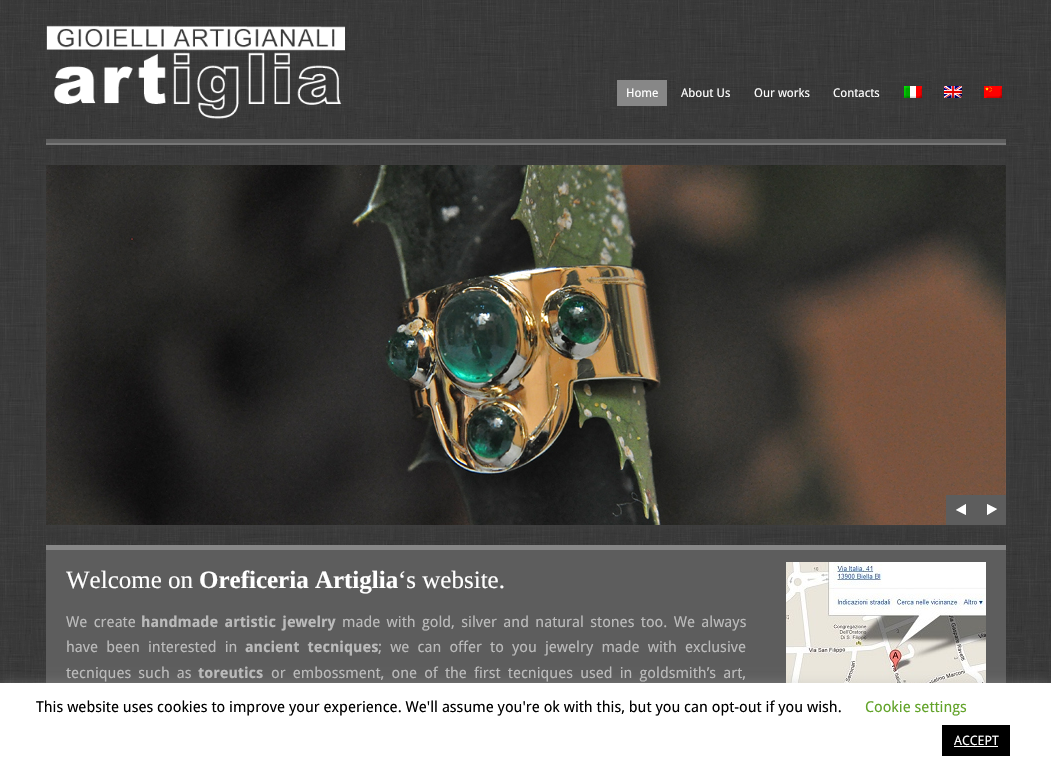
void draw(SkCanvas* canvas) {
    SkPaint paint;
    paint.setAntiAlias(true);
    auto face = [&](const char* family, int weight, float size, bool italic = false) {
        SkFontStyle style(weight, SkFontStyle::kNormal_Width,
            italic ? SkFontStyle::kItalic_Slant : SkFontStyle::kUpright_Slant);
        SkFont result(fontMgr->matchFamilyStyle(family, style), size);
        result.setSubpixel(true);
        return result;
    };
    auto write = [&](const char* s, float x, float y, const SkFont& font, SkColor color) {
        SkPaint ink(SkColor4f::FromColor(color));
        ink.setAntiAlias(true);
        canvas->drawString(s, x, y, font, ink);
    };
    auto writeSpaced = [&](const char* s, float x, float y, const SkFont& font, const SkPaint& ink, float letter, float word) {
        std::vector<SkGlyphID> glyphs(font.countText(s, strlen(s), SkTextEncoding::kUTF8));
        std::vector<float> xs(glyphs.size());
        font.textToGlyphs(s, strlen(s), SkTextEncoding::kUTF8, glyphs);
        font.getXPos(glyphs, xs, x);
        float extra = 0;
        for (size_t i = 0; i < glyphs.size(); i++) {
            xs[i] += extra;
            extra += letter + word * (glyphs[i] == font.unicharToGlyph(' '));
        }
        canvas->drawTextBlob(SkTextBlob::MakeFromPosHGlyphs(glyphs, xs, y, font), 0, 0, ink);
    };
    auto block = [&](float x, float y, float w, float h, SkColor color) {
        SkPaint ink(SkColor4f::FromColor(color));
        ink.setAntiAlias(true);
        canvas->drawRect(SkRect::MakeXYWH(x, y, w, h), ink);
    };
    auto paste = [&](const char* path, float x, float y, float w, float h) {
        auto image = SkImages::DeferredFromEncodedData(SkData::MakeFromFileName(path));
        canvas->drawImageRect(image, SkRect::MakeXYWH(x, y, w, h), SkSamplingOptions());
    };
    canvas->clear(SK_ColorWHITE);
    paste("pic1.png", 0, 0, 1051, 683);
    block(46, 143, 960, 2, SkColorSetRGB(119, 119, 119));
    paste("pic2.png", 46, 25, 299, 94);
    block(617, 80, 50, 26, SkColorSetRGB(135, 135, 135));
    auto kFont1 = face("Droid Sans", 400, 12);
    write("Home", 626, 97, kFont1, SK_ColorWHITE);
    write("About Us", 681, 97, kFont1, SK_ColorWHITE);
    write("Our works", 754, 97, kFont1, SK_ColorWHITE);
    write("Contacts", 833, 97, kFont1, SK_ColorWHITE);
    paste("pic3.png", 904, 86, 18, 12);
    paste("pic4.png", 944, 86, 18, 12);
    paste("pic5.png", 984, 86, 18, 12);
    block(46, 139, 960, 4, SkColorSetRGB(93, 93, 93));
    paint.setColor(SkColorSetRGB(64, 64, 64));
    paint.setMaskFilter(SkMaskFilter::MakeBlur(kNormal_SkBlurStyle, 3.5f));
    canvas->drawRect(SkRect::MakeXYWH(46, 166, 960, 360), paint);
    paint.setMaskFilter(nullptr);
    paste("pic6.png", 46, 165, 960, 360);
    paste("pic7.png", 946, 495, 30, 30);
    paste("pic8.png", 976, 495, 30, 30);
    block(46, 550, 960, 133, SkColorSetRGB(93, 93, 93));
    block(46, 545, 960, 5, SkColorSetRGB(135, 135, 135));
    auto kFont2 = face("Liberation Serif", 400, 25);
    write("Welcome on", 66, 588, kFont2, SK_ColorWHITE);
    auto kFont3 = face("Liberation Serif", 700, 25);
    write("Oreficeria Artiglia", 199, 588, kFont3, SK_ColorWHITE);
    write("‘s website.", 398, 588, kFont2, SK_ColorWHITE);
    auto kFont4 = face("Droid Sans", 400, 15);
    paint.setColor(SkColorSetRGB(187, 187, 187));
    writeSpaced("We create", 66, 627, kFont4, paint, 0, 2.5f);
    auto kFont5 = face("Droid Sans", 700, 15);
    writeSpaced("handmade artistic jewelry", 141, 627, kFont5, paint, 0, 2.5f);
    writeSpaced("made with gold, silver and natural stones too. We always", 342, 627, kFont4, paint, 0, 2.5f);
    writeSpaced("have been interested in", 66, 652, kFont4, paint, 0, 4.25f);
    writeSpaced("ancient tecniques", 245, 652, kFont5, paint, 0, 4.25f);
    writeSpaced("; we can offer to you jewelry made with exclusive", 378, 652, kFont4, paint, 0, 4.25f);
    writeSpaced("tecniques such as", 66, 678, kFont4, paint, 0, 3.25f);
    write("toreutics", 198, 678, kFont5, SkColorSetRGB(187, 187, 187));
    writeSpaced("or embossment, one of the first tecniques used in goldsmith’s art,", 271, 678, kFont4, paint, 0, 3.25f);
    paste("pic9.png", 786, 562, 200, 121);
    paint.setColor(SkColorSetARGB(77, 172, 171, 171));
    paint.setMaskFilter(SkMaskFilter::MakeBlur(kNormal_SkBlurStyle, 5));
    canvas->drawRect(SkRect::MakeXYWH(0, 682, 1051, 90), paint);
    paint.setMaskFilter(nullptr);
    block(0, 683, 1051, 90, SK_ColorWHITE);
    write("This website uses cookies to improve your experience. We'll assume you're ok with this, but you can opt-out if you wish.", 36, 712, kFont4, SK_ColorBLACK);
    write("Cookie settings", 865, 712, kFont4, SkColorSetRGB(98, 163, 41));
    block(942, 725, 68, 31, SK_ColorBLACK);
    auto kFont6 = face("Droid Sans", 400, 13);
    write("ACCEPT", 954, 745, kFont6, SK_ColorWHITE);
    block(954, 746, 44, 1, SK_ColorWHITE);
}
